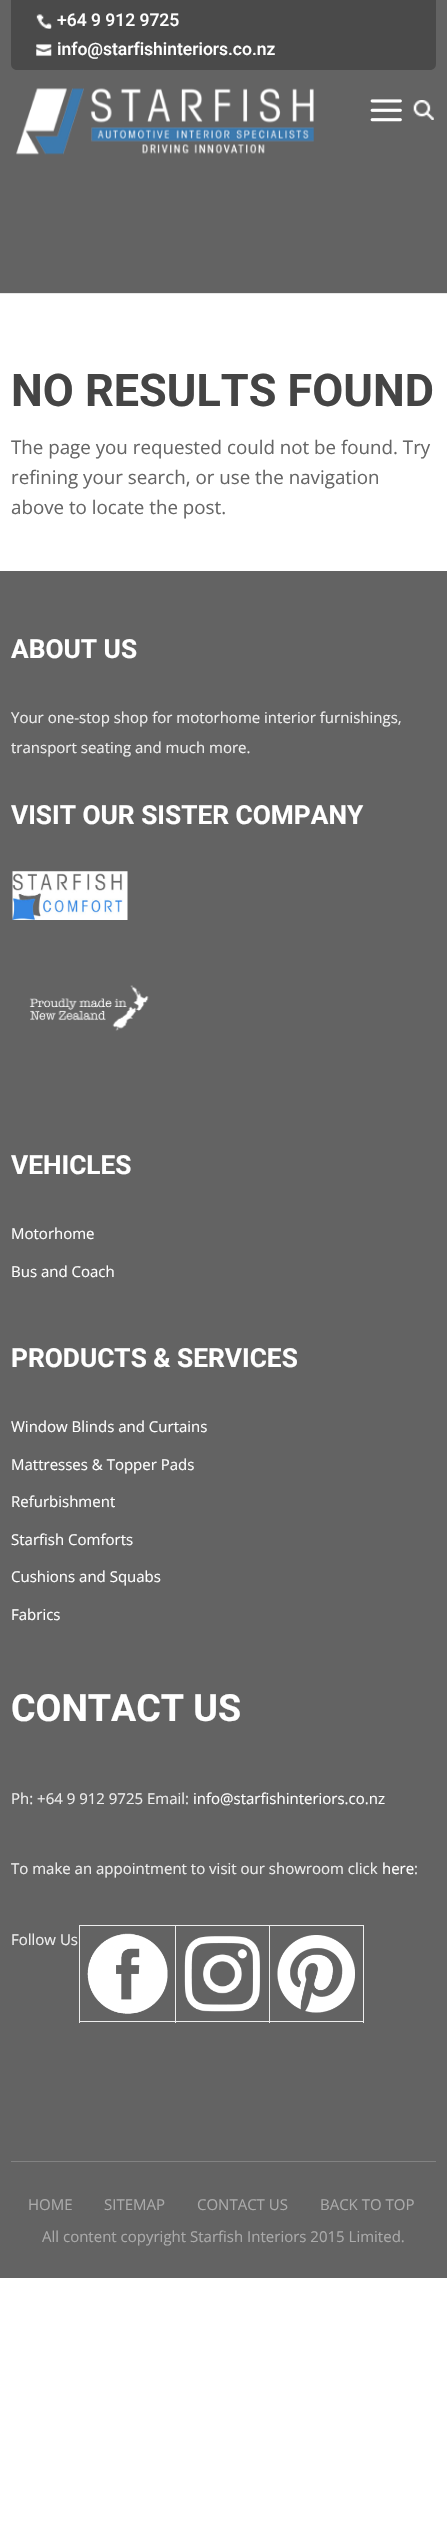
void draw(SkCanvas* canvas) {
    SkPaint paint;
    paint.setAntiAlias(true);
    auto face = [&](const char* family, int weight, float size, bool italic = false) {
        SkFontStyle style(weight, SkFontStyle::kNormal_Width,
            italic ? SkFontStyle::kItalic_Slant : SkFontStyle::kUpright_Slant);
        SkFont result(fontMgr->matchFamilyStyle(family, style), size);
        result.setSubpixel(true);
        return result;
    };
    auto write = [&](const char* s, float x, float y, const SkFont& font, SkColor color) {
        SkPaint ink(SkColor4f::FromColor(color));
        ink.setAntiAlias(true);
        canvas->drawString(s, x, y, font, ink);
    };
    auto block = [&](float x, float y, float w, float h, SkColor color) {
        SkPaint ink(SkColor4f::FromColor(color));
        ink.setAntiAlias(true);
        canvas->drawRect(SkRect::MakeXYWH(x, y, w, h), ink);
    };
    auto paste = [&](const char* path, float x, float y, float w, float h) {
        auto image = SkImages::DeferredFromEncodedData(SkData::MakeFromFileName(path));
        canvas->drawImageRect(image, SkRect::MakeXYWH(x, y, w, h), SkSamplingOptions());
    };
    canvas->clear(SK_ColorWHITE);
    paint.setColor(SkColorSetRGB(230, 230, 230));
    canvas->drawPath(SkPathBuilder().moveTo(0, 292).lineTo(0, 294).lineTo(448, 294).lineTo(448, 1).lineTo(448, 292).close().detach(), paint);
    block(0, 0, 447, 293, SkColorSetRGB(99, 99, 99));
    paint.setColor(SkColorSetRGB(74, 74, 74));
    canvas->drawPath(SkPathBuilder().moveTo(11, 0).lineTo(436, 0).lineTo(436, 64).cubicTo(436, 67.5f, 433.5f, 70, 430, 70).lineTo(17, 70).cubicTo(13.5f, 70, 11, 67.5f, 11, 64).close().detach(), paint);
    paste("pic1.png", 36, 14, 16, 15);
    auto kFont1 = face("Roboto", 500, 17.5f);
    write("+64 9 912 9725", 57, 26, kFont1, SK_ColorWHITE);
    paste("pic2.png", 36, 44, 16, 13);
    write("info@starfishinteriors.co.nz", 57, 55, kFont1, SK_ColorWHITE);
    paste("pic3.png", 16, 88, 298, 67);
    paste("pic4.png", 370, 99, 32, 23);
    paste("pic5.png", 413, 100, 21, 20);
    auto kFont2 = face("Roboto", 700, 45);
    write("NO RESULTS FOUND", 11, 406, kFont2, SkColorSetRGB(68, 68, 68));
    auto kFont3 = face("Open Sans", 400, 18.75f);
    write("The page you requested could not be found. Try", 11, 454, kFont3, SkColorSetRGB(102, 102, 102));
    write("refining your search, or use the navigation", 11, 484, kFont3, SkColorSetRGB(102, 102, 102));
    write("above to locate the post.", 11, 514, kFont3, SkColorSetRGB(102, 102, 102));
    block(0, 571, 447, 1707, SkColorSetRGB(99, 99, 99));
    auto kFont4 = face("Roboto", 700, 26.25f);
    write("ABOUT US", 11, 658, kFont4, SK_ColorWHITE);
    auto kFont5 = face("Open Sans", 400, 15);
    write("Your one-stop shop for motorhome interior furnishings,", 11, 723, kFont5, SkColorSetRGB(238, 238, 238));
    write("transport seating and much more.", 11, 753, kFont5, SkColorSetRGB(238, 238, 238));
    write("VISIT OUR SISTER COMPANY", 11, 824, kFont4, SK_ColorWHITE);
    paste("pic6.png", 12, 871, 116, 49);
    paste("pic7.png", 29, 985, 120, 46);
    write("VEHICLES", 11, 1174, kFont4, SK_ColorWHITE);
    write("Motorhome", 11, 1239, kFont5, SK_ColorWHITE);
    write("Bus and Coach", 11, 1277, kFont5, SK_ColorWHITE);
    write("PRODUCTS & SERVICES", 11, 1367, kFont4, SK_ColorWHITE);
    write("Window Blinds and Curtains", 11, 1432, kFont5, SK_ColorWHITE);
    write("Mattresses & Topper Pads", 11, 1470, kFont5, SK_ColorWHITE);
    write("Refurbishment", 11, 1507, kFont5, SK_ColorWHITE);
    write("Starfish Comforts", 11, 1545, kFont5, SK_ColorWHITE);
    write("Cushions and Squabs", 11, 1582, kFont5, SK_ColorWHITE);
    write("Fabrics", 11, 1620, kFont5, SK_ColorWHITE);
    auto kFont6 = face("Roboto", 700, 37.5f);
    write("CONTACT US", 11, 1721, kFont6, SK_ColorWHITE);
    write("Ph: +64 9 912 9725 Email:", 11, 1804, kFont5, SkColorSetRGB(238, 238, 238));
    write("info@starfishinteriors.co.nz", 193, 1804, kFont5, SK_ColorWHITE);
    write("To make an appointment to visit our showroom click", 11, 1874, kFont5, SkColorSetRGB(238, 238, 238));
    write("here", 382, 1874, kFont5, SK_ColorWHITE);
    write(":", 414, 1874, kFont5, SkColorSetRGB(238, 238, 238));
    write("Follow Us", 11, 1945, kFont5, SkColorSetRGB(238, 238, 238));
    block(269, 1925, 95, 1, SkColorSetRGB(238, 238, 238));
    block(363, 1925, 1, 98, SkColorSetRGB(238, 238, 238));
    block(269, 2021, 95, 1, SkColorSetRGB(238, 238, 238));
    block(269, 1925, 1, 98, SkColorSetRGB(238, 238, 238));
    block(175, 1925, 95, 1, SkColorSetRGB(238, 238, 238));
    block(175, 2021, 95, 1, SkColorSetRGB(238, 238, 238));
    block(175, 1925, 1, 98, SkColorSetRGB(238, 238, 238));
    block(79, 1925, 97, 1, SkColorSetRGB(238, 238, 238));
    block(79, 2021, 97, 1, SkColorSetRGB(238, 238, 238));
    block(79, 1925, 1, 98, SkColorSetRGB(238, 238, 238));
    paste("pic8.png", 87, 1933, 81, 81);
    paste("pic9.png", 184, 1936, 76, 76);
    paste("pic10.png", 277, 1935, 78, 78);
    block(11, 2161, 425, 1, SkColorSetRGB(130, 130, 130));
    write("HOME", 28, 2210, kFont5, SkColorSetRGB(170, 170, 170));
    write("SITEMAP", 104, 2210, kFont5, SkColorSetRGB(170, 170, 170));
    write("CONTACT US", 197, 2210, kFont5, SkColorSetRGB(170, 170, 170));
    write("BACK TO TOP", 320, 2210, kFont5, SkColorSetRGB(170, 170, 170));
    write("All content copyright Starfish Interiors 2015 Limited.", 42, 2242, kFont5, SkColorSetRGB(170, 170, 170));
}
